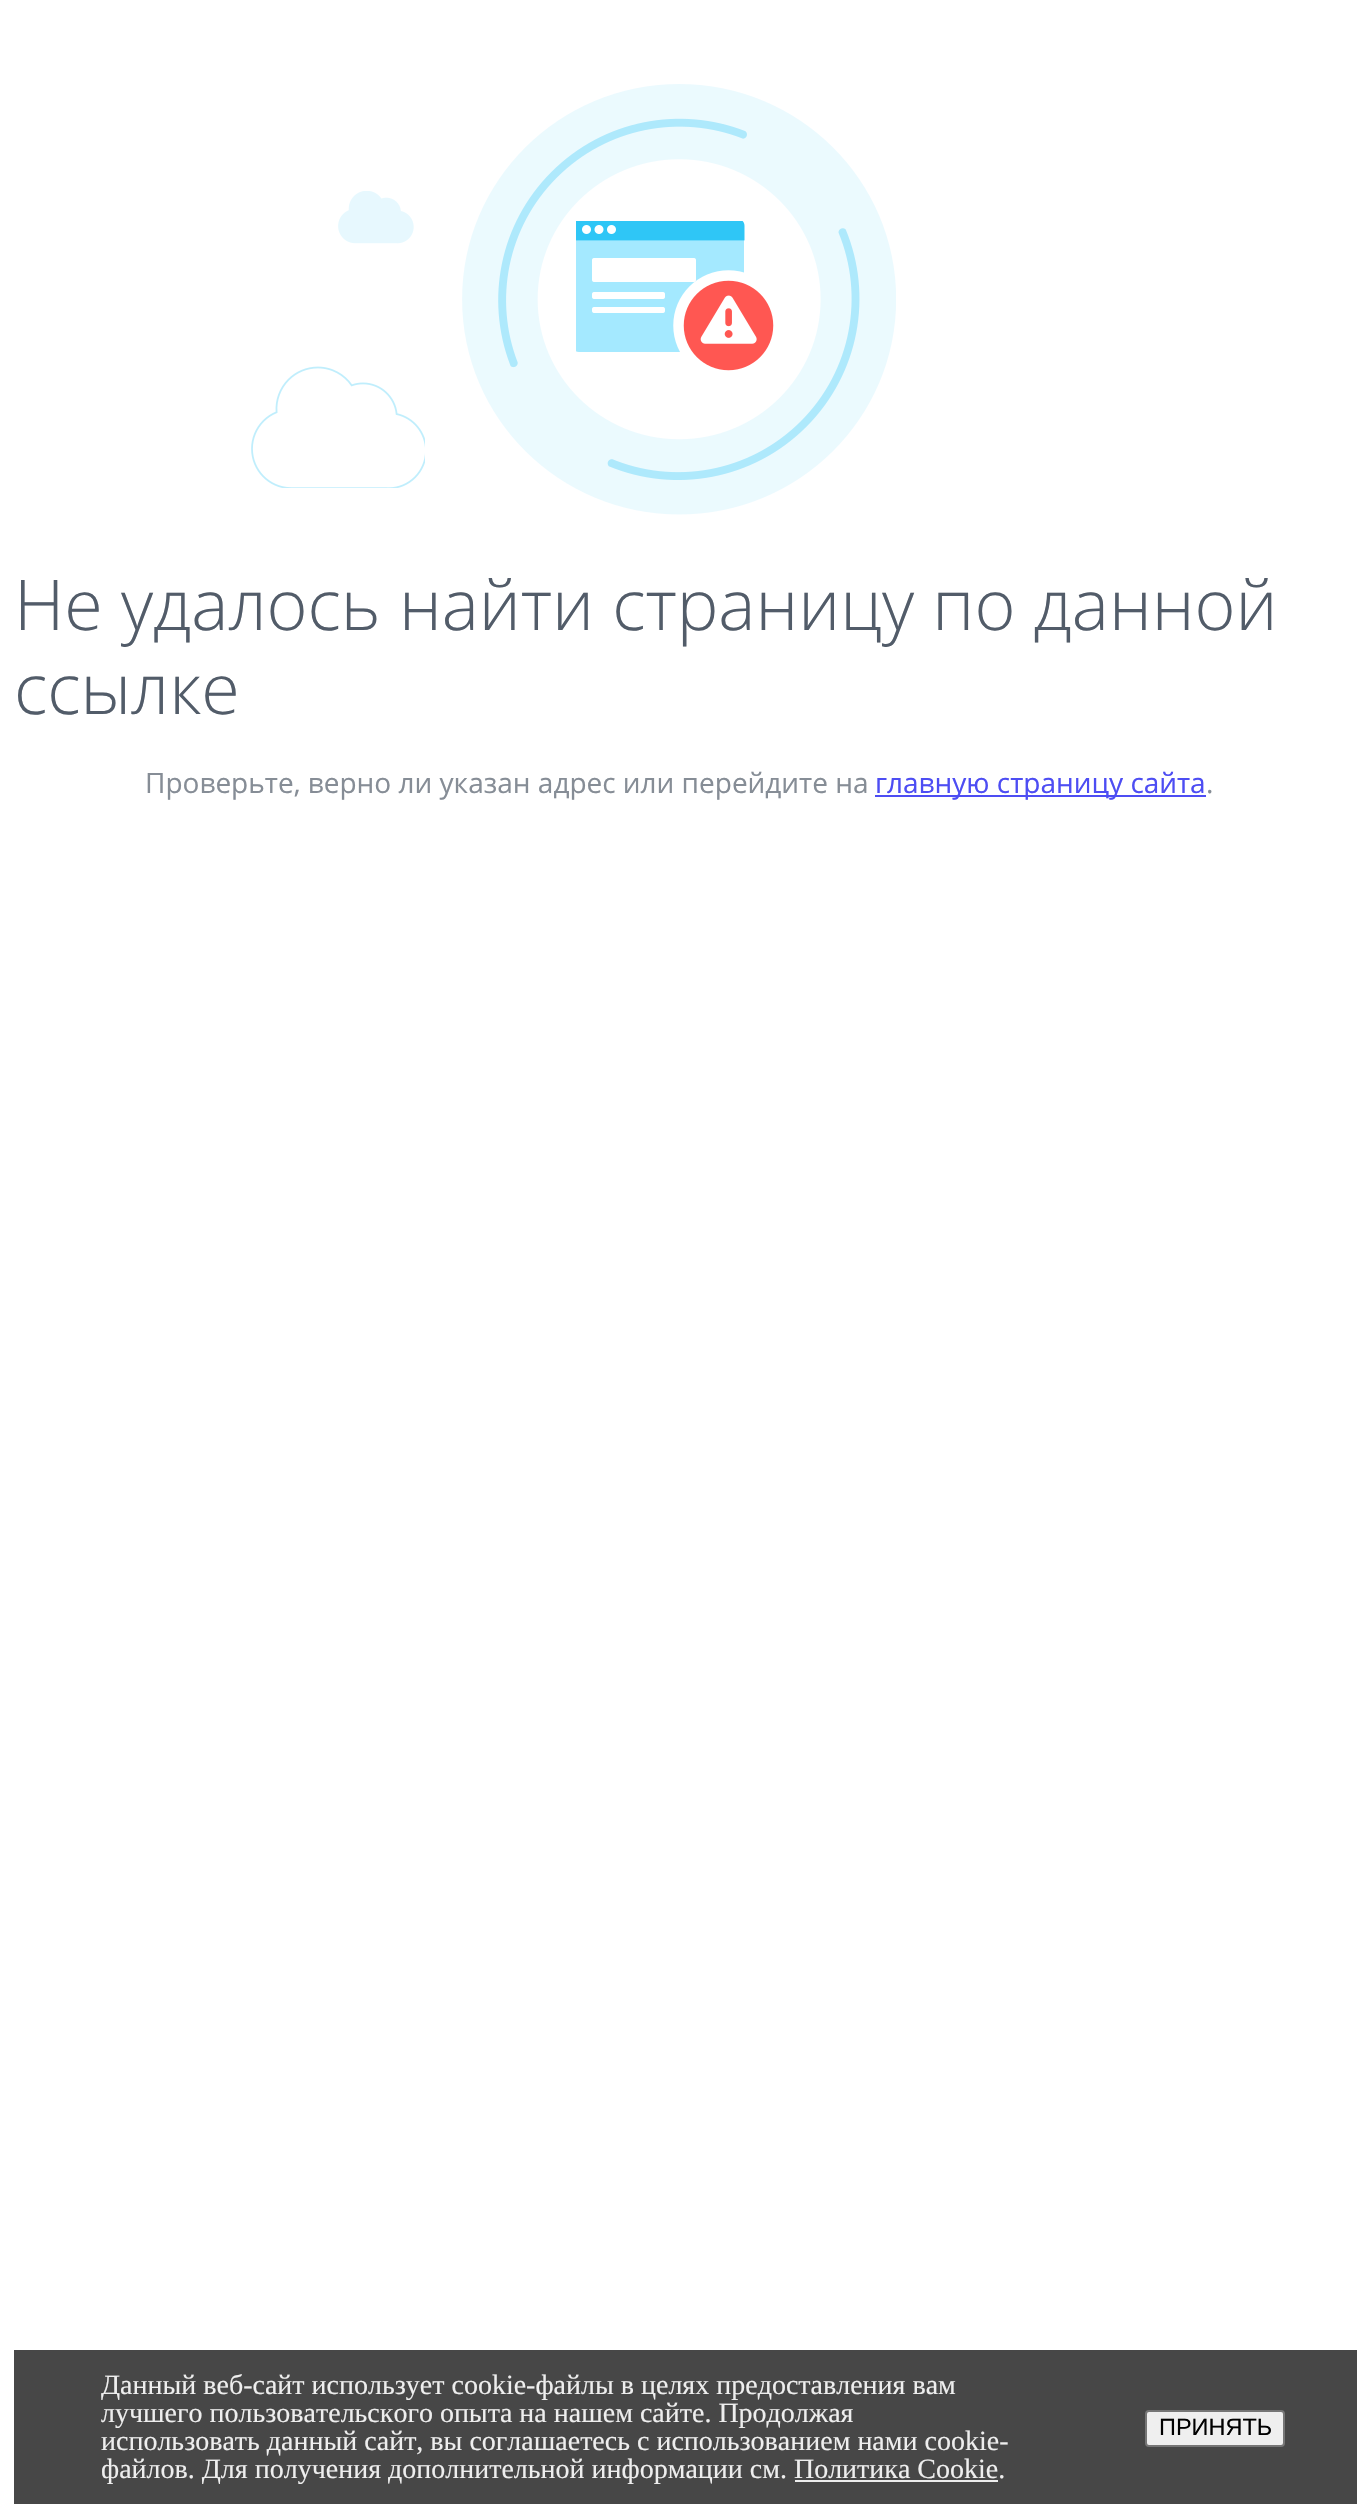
void draw(SkCanvas* canvas) {
    SkPaint paint;
    paint.setAntiAlias(true);
    auto face = [&](const char* family, int weight, float size, bool italic = false) {
        SkFontStyle style(weight, SkFontStyle::kNormal_Width,
            italic ? SkFontStyle::kItalic_Slant : SkFontStyle::kUpright_Slant);
        SkFont result(fontMgr->matchFamilyStyle(family, style), size);
        result.setSubpixel(true);
        return result;
    };
    auto write = [&](const char* s, float x, float y, const SkFont& font, SkColor color) {
        SkPaint ink(SkColor4f::FromColor(color));
        ink.setAntiAlias(true);
        canvas->drawString(s, x, y, font, ink);
    };
    auto block = [&](float x, float y, float w, float h, SkColor color) {
        SkPaint ink(SkColor4f::FromColor(color));
        ink.setAntiAlias(true);
        canvas->drawRect(SkRect::MakeXYWH(x, y, w, h), ink);
    };
    auto paste = [&](const char* path, float x, float y, float w, float h) {
        auto image = SkImages::DeferredFromEncodedData(SkData::MakeFromFileName(path));
        canvas->drawImageRect(image, SkRect::MakeXYWH(x, y, w, h), SkSamplingOptions());
    };
    canvas->clear(SK_ColorWHITE);
    paste("pic1.png", 462, 84, 434, 431);
    paste("pic2.png", 251, 191, 174, 297);
    paste("pic3.png", 576, 221, 198, 150);
    auto kFont1 = face("Open Sans", 300, 70);
    write("Не удалось найти страницу по данной", 14, 630, kFont1, SkColorSetRGB(82, 92, 105));
    write("ссылке", 14, 714, kFont1, SkColorSetRGB(82, 92, 105));
    auto kFont2 = face("Open Sans", 400, 28);
    write("Проверьте, верно ли указан адрес или перейдите на", 145, 793, kFont2, SkColorSetRGB(134, 141, 150));
    block(875, 795, 331, 2, SkColorSetRGB(77, 77, 243));
    write("главную страницу сайта", 875, 793, kFont2, SkColorSetRGB(77, 77, 243));
    write(".", 1206, 793, kFont2, SkColorSetRGB(134, 141, 150));
    block(14, 2350, 1343, 154, SkColorSetRGB(71, 71, 71));
    auto kFont3 = face("Liberation Serif", 400, 28);
    write("Данный веб-сайт использует cookie-файлы в целях предоставления вам", 101, 2394, kFont3, SkColorSetRGB(238, 238, 238));
    write("лучшего пользовательского опыта на нашем сайте. Продолжая", 101, 2422, kFont3, SkColorSetRGB(238, 238, 238));
    write("использовать данный сайт, вы соглашаетесь с использованием нами cookie-", 101, 2450, kFont3, SkColorSetRGB(238, 238, 238));
    write("файлов. Для получения дополнительной информации см. Политика Cookie.", 101, 2478, kFont3, SkColorSetRGB(238, 238, 238));
    block(795, 2480, 203, 2, SkColorSetRGB(238, 238, 238));
    paint.setColor(SkColorSetRGB(239, 239, 239));
    canvas->drawRoundRect(SkRect::MakeXYWH(1146, 2411, 138, 35), 3, 3, paint);
    paint.setStyle(SkPaint::kStroke_Style);
    paint.setStrokeWidth(2);
    paint.setColor(SkColorSetRGB(118, 118, 118));
    canvas->drawRoundRect(SkRect::MakeXYWH(1146, 2411, 138, 35), 3, 3, paint);
    auto kFont4 = face("Liberation Sans", 400, 23.5f);
    write("ПРИНЯТЬ", 1159, 2435, kFont4, SK_ColorBLACK);
}
